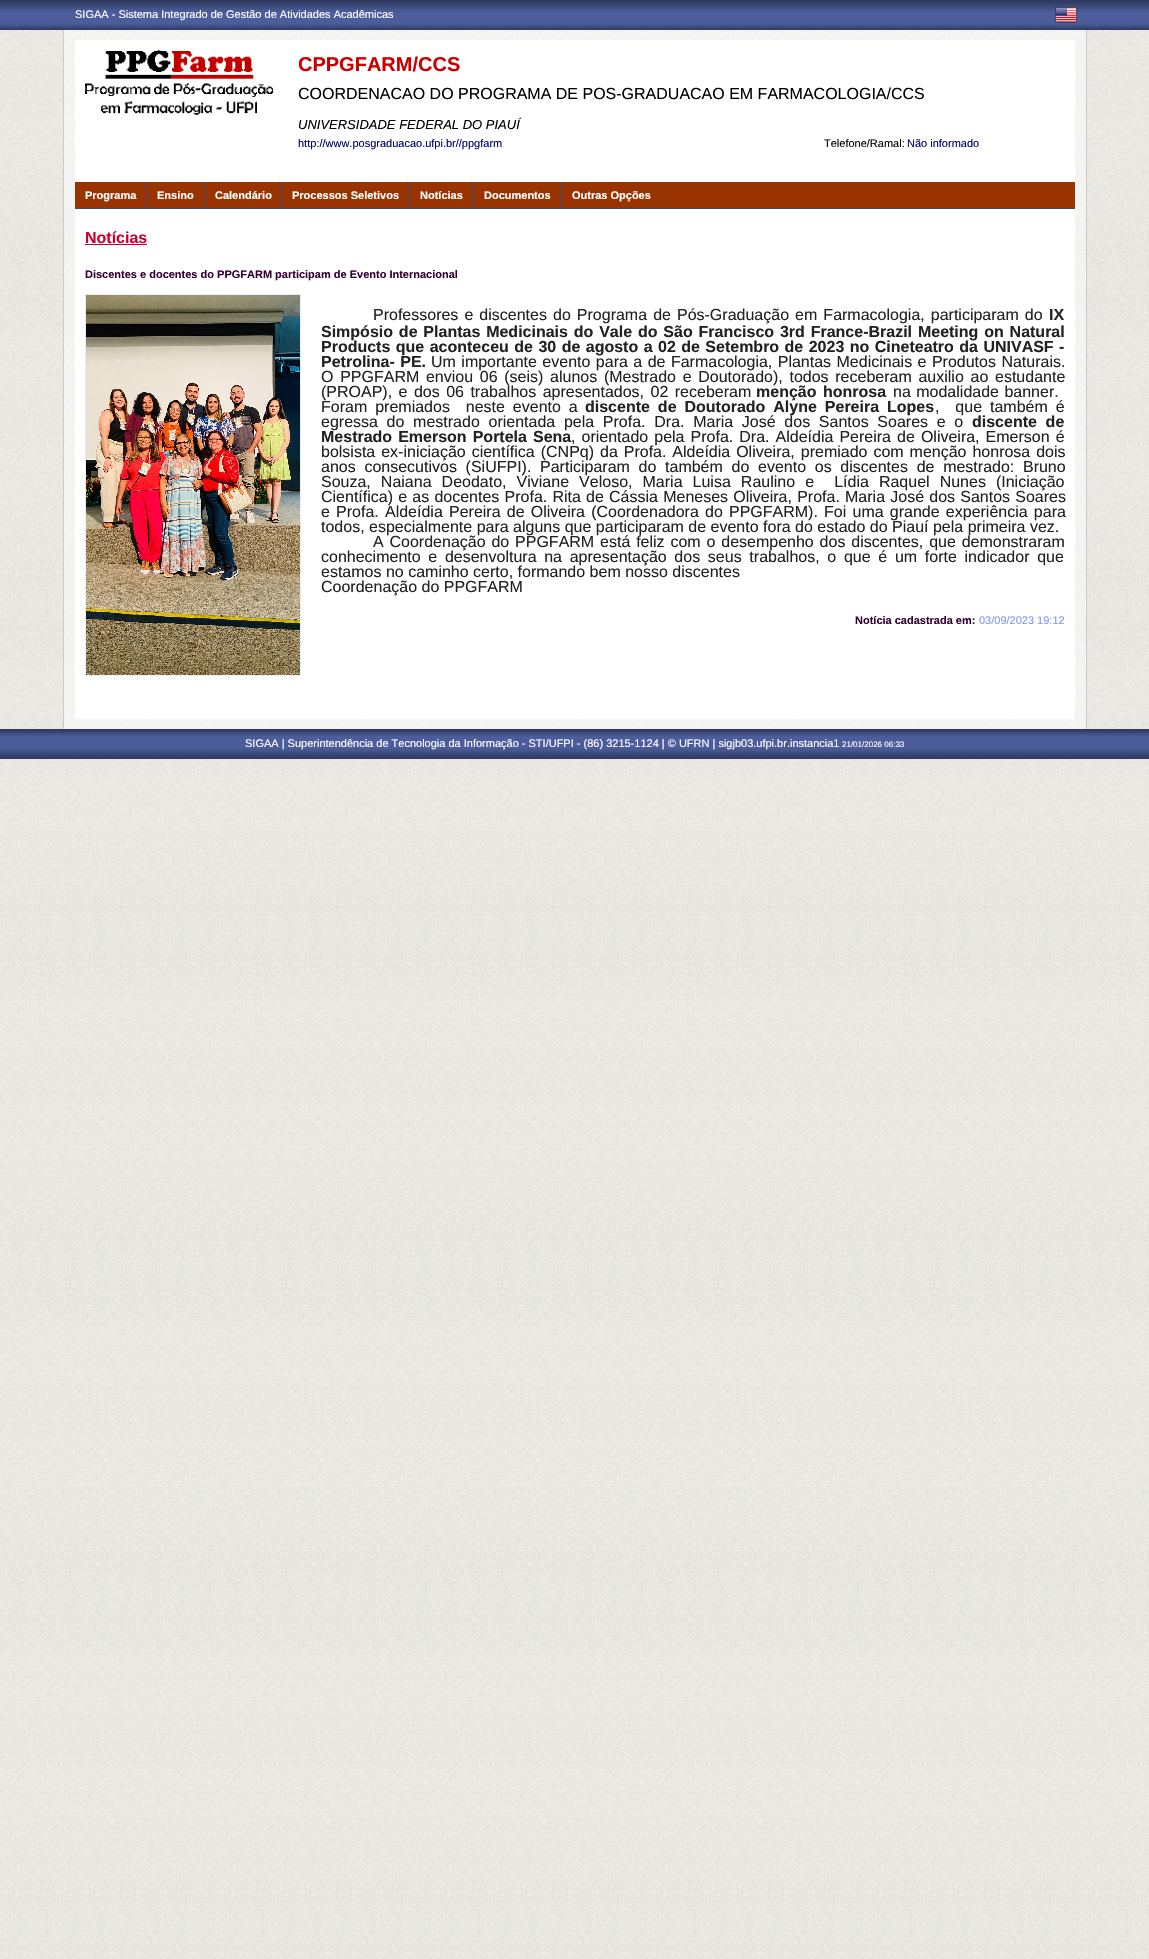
void draw(SkCanvas* canvas) {
    SkPaint paint;
    paint.setAntiAlias(true);
    auto face = [&](const char* family, int weight, float size, bool italic = false) {
        SkFontStyle style(weight, SkFontStyle::kNormal_Width,
            italic ? SkFontStyle::kItalic_Slant : SkFontStyle::kUpright_Slant);
        SkFont result(fontMgr->matchFamilyStyle(family, style), size);
        result.setSubpixel(true);
        return result;
    };
    auto write = [&](const char* s, float x, float y, const SkFont& font, SkColor color) {
        SkPaint ink(SkColor4f::FromColor(color));
        ink.setAntiAlias(true);
        canvas->drawString(s, x, y, font, ink);
    };
    auto writeSpaced = [&](const char* s, float x, float y, const SkFont& font, const SkPaint& ink, float letter, float word) {
        std::vector<SkGlyphID> glyphs(font.countText(s, strlen(s), SkTextEncoding::kUTF8));
        std::vector<float> xs(glyphs.size());
        font.textToGlyphs(s, strlen(s), SkTextEncoding::kUTF8, glyphs);
        font.getXPos(glyphs, xs, x);
        float extra = 0;
        for (size_t i = 0; i < glyphs.size(); i++) {
            xs[i] += extra;
            extra += letter + word * (glyphs[i] == font.unicharToGlyph(' '));
        }
        canvas->drawTextBlob(SkTextBlob::MakeFromPosHGlyphs(glyphs, xs, y, font), 0, 0, ink);
    };
    auto block = [&](float x, float y, float w, float h, SkColor color) {
        SkPaint ink(SkColor4f::FromColor(color));
        ink.setAntiAlias(true);
        canvas->drawRect(SkRect::MakeXYWH(x, y, w, h), ink);
    };
    auto paste = [&](const char* path, float x, float y, float w, float h) {
        auto image = SkImages::DeferredFromEncodedData(SkData::MakeFromFileName(path));
        canvas->drawImageRect(image, SkRect::MakeXYWH(x, y, w, h), SkSamplingOptions());
    };
    canvas->clear(SK_ColorWHITE);
    paste("pic1.png", 0, 30, 1149, 1929);
    paste("pic2.png", 0, 0, 1149, 30);
    paste("pic3.png", 0, 729, 1149, 30);
    auto kFont1 = face("Liberation Sans", 400, 11);
    write("SIGAA - Sistema Integrado de Gestão de Atividades Acadêmicas", 75, 18, kFont1, SK_ColorWHITE);
    paste("pic4.png", 1055, 7, 22, 16);
    paste("pic5.png", 64, 30, 1022, 699);
    block(1086, 30, 1, 699, SkColorSetRGB(202, 202, 199));
    block(63, 30, 1, 699, SkColorSetRGB(202, 202, 199));
    block(75, 40, 1000, 679, SK_ColorWHITE);
    paste("pic6.png", 85, 50, 189, 65);
    auto kFont2 = face("Liberation Sans", 700, 20);
    write("CPPGFARM/CCS", 298, 71, kFont2, SkColorSetRGB(204, 0, 0));
    auto kFont3 = face("Liberation Sans", 400, 16);
    write("COORDENACAO DO PROGRAMA DE POS-GRADUACAO EM FARMACOLOGIA/CCS", 298, 99, kFont3, SK_ColorBLACK);
    auto kFont4 = face("Liberation Sans", 400, 13, true);
    write("UNIVERSIDADE FEDERAL DO PIAUÍ", 298, 129, kFont4, SK_ColorBLACK);
    write("http://www.posgraduacao.ufpi.br//ppgfarm", 298, 147, kFont1, SkColorSetRGB(0, 0, 112));
    write("Telefone/Ramal:", 824, 147, kFont1, SK_ColorBLACK);
    write("Não informado", 907, 147, kFont1, SkColorSetRGB(0, 0, 112));
    block(75, 182, 1000, 26, SkColorSetRGB(153, 51, 0));
    block(75, 208, 1000, 1, SkColorSetRGB(59, 72, 120));
    auto kFont5 = face("Liberation Sans", 700, 11);
    write("Programa", 85, 199, kFont5, SK_ColorWHITE);
    block(146, 182, 1, 27, SkColorSetRGB(59, 72, 120));
    write("Ensino", 157, 199, kFont5, SK_ColorWHITE);
    block(204, 182, 1, 27, SkColorSetRGB(59, 72, 120));
    write("Calendário", 215, 199, kFont5, SK_ColorWHITE);
    block(281, 182, 1, 27, SkColorSetRGB(59, 72, 120));
    write("Processos Seletivos", 292, 199, kFont5, SK_ColorWHITE);
    block(409, 182, 1, 27, SkColorSetRGB(59, 72, 120));
    write("Notícias", 420, 199, kFont5, SK_ColorWHITE);
    block(473, 182, 1, 27, SkColorSetRGB(59, 72, 120));
    write("Documentos", 484, 199, kFont5, SK_ColorWHITE);
    block(561, 182, 1, 27, SkColorSetRGB(59, 72, 120));
    write("Outras Opções", 572, 199, kFont5, SK_ColorWHITE);
    auto kFont6 = face("Liberation Sans", 700, 16);
    write("Notícias", 85, 243, kFont6, SkColorSetRGB(204, 0, 51));
    block(85, 244, 62, 1, SkColorSetRGB(204, 0, 51));
    write("Discentes e docentes do PPGFARM participam de Evento Internacional", 85, 278, kFont5, SkColorSetRGB(51, 0, 51));
    paint.setStyle(SkPaint::kStroke_Style);
    paint.setStrokeWidth(1);
    paint.setColor(SkColorSetRGB(233, 238, 242));
    canvas->drawRect(SkRect::MakeXYWH(85.5f, 294.5f, 215, 381), paint);
    paste("pic7.png", 86, 295, 214, 380);
    paint.setStyle(SkPaint::kFill_Style);
    paint.setColor(SkColorSetRGB(34, 34, 34));
    writeSpaced("Professores e discentes do Programa de Pós-Graduação em Farmacologia, participaram do", 373, 320, kFont3, paint, 0, 1.6f);
    write("IX", 1049, 320, kFont6, SkColorSetRGB(34, 34, 34));
    writeSpaced("Simpósio de Plantas Medicinais do Vale do São Francisco 3rd France-Brazil Meeting on Natural", 321, 337, kFont6, paint, 0, 1.4f);
    writeSpaced("Products que aconteceu de 30 de agosto a 02 de Setembro de 2023 no Cineteatro da UNIVASF -", 321, 352, kFont6, paint, 0, 1);
    writeSpaced("Petrolina- PE.", 321, 367, kFont6, paint, 0, 1);
    writeSpaced("Um importante evento para a de Farmacologia, Plantas Medicinais e Produtos Naturais.", 431, 367, kFont3, paint, 0, 1);
    writeSpaced("O PPGFARM enviou 06 (seis) alunos (Mestrado e Doutorado), todos receberam auxilio ao estudante", 321, 382, kFont3, paint, 0, 2.25f);
    writeSpaced("(PROAP), e dos 06 trabalhos apresentados, 02 receberam", 321, 397, kFont3, paint, 0, 2);
    writeSpaced("menção honrosa", 756, 397, kFont6, paint, 0, 2);
    writeSpaced("na modalidade banner.", 893, 397, kFont3, paint, 0, 1);
    writeSpaced("Foram premiados  neste evento a", 321, 412, kFont3, paint, 0, 3.5f);
    writeSpaced("discente de Doutorado Alyne Pereira Lopes", 585, 412, kFont6, paint, 0, 3.5f);
    writeSpaced(",  que também é", 935, 412, kFont3, paint, 0, 3.5f);
    writeSpaced("egressa do mestrado orientada pela Profa. Dra. Maria José dos Santos Soares e o", 321, 427, kFont3, paint, 0, 4.25f);
    writeSpaced("discente de", 972, 427, kFont6, paint, 0, 4.25f);
    writeSpaced("Mestrado Emerson Portela Sena", 321, 442, kFont6, paint, 0, 1.6f);
    writeSpaced(", orientado pela Profa. Dra. Aldeídia Pereira de Oliveira, Emerson é", 571, 442, kFont3, paint, 0, 1.6f);
    writeSpaced("bolsista ex-iniciação científica (CNPq) da Profa. Aldeídia Oliveira, premiado com menção honrosa dois", 321, 457, kFont3, paint, 0, 1.5f);
    writeSpaced("anos consecutivos (SiUFPI). Participaram do também do evento os discentes de mestrado: Bruno", 321, 472, kFont3, paint, 0, 4.25f);
    writeSpaced("Souza, Naiana Deodato, Viviane Veloso, Maria Luisa Raulino e  Lídia Raquel Nunes (Iniciação", 321, 487, kFont3, paint, 0, 5.6f);
    writeSpaced("Científica) e as docentes Profa. Rita de Cássia Meneses Oliveira, Profa. Maria José dos Santos Soares", 321, 502, kFont3, paint, 0, 0.75f);
    writeSpaced("e Profa. Aldeídia Pereira de Oliveira (Coordenadora do PPGFARM). Foi uma grande experiência para", 321, 517, kFont3, paint, 0, 1.75f);
    write("todos, especialmente para alguns que participaram de evento fora do estado do Piauí pela primeira vez.", 321, 532, kFont3, SkColorSetRGB(34, 34, 34));
    writeSpaced("A Coordenação do PPGFARM está feliz com o desempenho dos discentes, que demonstraram", 373, 547, kFont3, paint, 0, 1.4f);
    writeSpaced("conhecimento e desenvoltura na apresentação dos seus trabalhos, o que é um forte indicador que", 321, 562, kFont3, paint, 0, 3.25f);
    write("estamos no caminho certo, formando bem nosso discentes", 321, 577, kFont3, SkColorSetRGB(34, 34, 34));
    write("Coordenação do PPGFARM", 321, 592, kFont3, SkColorSetRGB(34, 34, 34));
    write("Notícia cadastrada em:", 855, 624, kFont5, SkColorSetRGB(51, 0, 51));
    write("03/09/2023 19:12", 979, 624, kFont1, SkColorSetRGB(125, 151, 254));
    write("SIGAA | Superintendência de Tecnologia da Informação - STI/UFPI - (86) 3215-1124 | © UFRN | sigjb03.ufpi.br.instancia1", 245, 747, kFont1, SK_ColorWHITE);
    auto kFont7 = face("Liberation Sans", 400, 8);
    write("21/01/2026 06:33", 842, 747, kFont7, SK_ColorWHITE);
}
